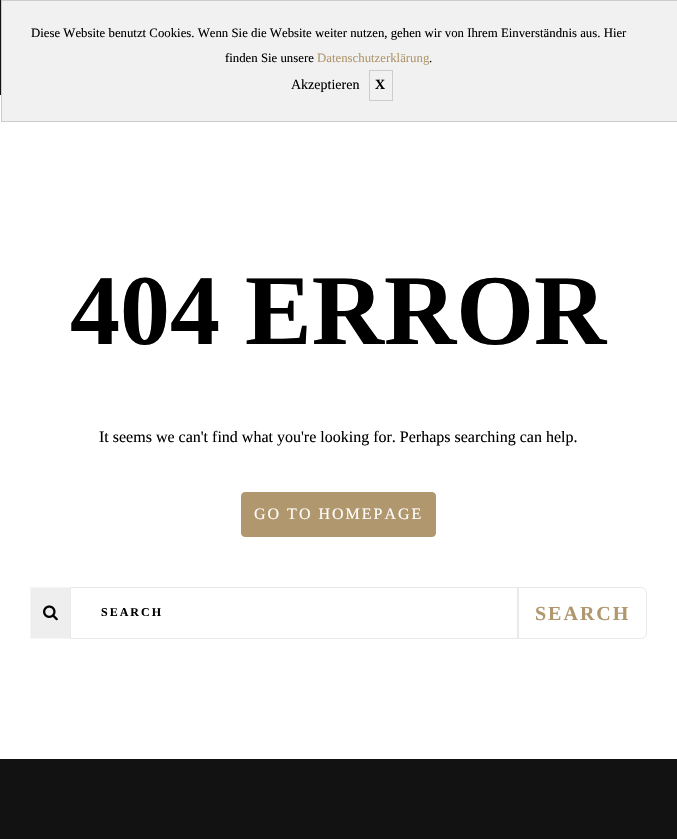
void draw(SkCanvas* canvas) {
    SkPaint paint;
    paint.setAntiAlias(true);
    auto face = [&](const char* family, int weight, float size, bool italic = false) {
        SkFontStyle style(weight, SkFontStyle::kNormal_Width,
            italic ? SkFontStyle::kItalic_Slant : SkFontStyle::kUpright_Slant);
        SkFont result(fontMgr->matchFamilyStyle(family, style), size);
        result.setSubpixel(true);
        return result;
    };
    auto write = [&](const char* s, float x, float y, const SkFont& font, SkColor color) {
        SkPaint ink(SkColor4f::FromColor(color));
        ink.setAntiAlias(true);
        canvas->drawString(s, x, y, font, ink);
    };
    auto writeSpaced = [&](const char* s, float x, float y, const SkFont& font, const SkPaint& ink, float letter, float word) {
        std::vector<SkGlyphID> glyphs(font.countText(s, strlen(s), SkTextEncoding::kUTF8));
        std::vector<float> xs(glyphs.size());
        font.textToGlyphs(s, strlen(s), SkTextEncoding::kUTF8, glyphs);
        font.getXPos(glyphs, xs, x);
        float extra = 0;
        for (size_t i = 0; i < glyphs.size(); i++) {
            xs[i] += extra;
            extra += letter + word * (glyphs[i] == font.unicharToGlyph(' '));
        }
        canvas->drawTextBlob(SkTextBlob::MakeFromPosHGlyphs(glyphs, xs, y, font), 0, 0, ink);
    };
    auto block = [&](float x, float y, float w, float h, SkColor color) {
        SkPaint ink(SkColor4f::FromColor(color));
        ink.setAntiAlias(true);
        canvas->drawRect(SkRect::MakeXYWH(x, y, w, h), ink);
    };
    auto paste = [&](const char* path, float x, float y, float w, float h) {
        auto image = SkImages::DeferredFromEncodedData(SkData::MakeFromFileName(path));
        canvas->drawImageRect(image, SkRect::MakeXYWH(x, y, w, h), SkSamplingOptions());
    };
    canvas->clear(SK_ColorWHITE);
    block(0, 0, 1, 95, SkColorSetRGB(18, 18, 18));
    paint.setColor(SkColorSetRGB(241, 241, 241));
    canvas->drawRect(SkRect::MakeXYWH(1.5f, 0.5f, 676, 121), paint);
    paint.setStyle(SkPaint::kStroke_Style);
    paint.setStrokeWidth(1);
    paint.setColor(SkColorSetRGB(204, 204, 204));
    canvas->drawRect(SkRect::MakeXYWH(1.5f, 0.5f, 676, 121), paint);
    auto kFont1 = face("Liberation Serif", 400, 12.8f);
    write("Diese Website benutzt Cookies. Wenn Sie die Website weiter nutzen, gehen wir von Ihrem Einverständnis aus. Hier", 31, 37, kFont1, SK_ColorBLACK);
    write("finden Sie unsere", 225, 62, kFont1, SK_ColorBLACK);
    write("Datenschutzerklärung", 317, 62, kFont1, SkColorSetRGB(176, 151, 109));
    write(".", 429, 62, kFont1, SK_ColorBLACK);
    auto kFont2 = face("Liberation Serif", 400, 14);
    write("Akzeptieren", 291, 89, kFont2, SK_ColorBLACK);
    canvas->drawRect(SkRect::MakeXYWH(369.5f, 70.5f, 23, 30), paint);
    auto kFont3 = face("Liberation Serif", 700, 14);
    write("X", 375, 89, kFont3, SK_ColorBLACK);
    auto kFont4 = face("Liberation Serif", 700, 100);
    write("404 ERROR", 70, 344, kFont4, SK_ColorBLACK);
    auto kFont5 = face("Liberation Serif", 400, 16);
    write("It seems we can't find what you're looking for. Perhaps searching can help.", 99, 442, kFont5, SK_ColorBLACK);
    paint.setStyle(SkPaint::kFill_Style);
    paint.setColor(SkColorSetRGB(176, 151, 109));
    canvas->drawRoundRect(SkRect::MakeXYWH(241.5f, 492.5f, 194, 44), 3.5f, 3.5f, paint);
    paint.setStyle(SkPaint::kStroke_Style);
    canvas->drawRoundRect(SkRect::MakeXYWH(241.5f, 492.5f, 194, 44), 3.5f, 3.5f, paint);
    paint.setStyle(SkPaint::kFill_Style);
    paint.setColor(SK_ColorWHITE);
    writeSpaced("GO TO HOMEPAGE", 254, 519, kFont5, paint, 2, 0);
    block(31, 588, 39, 50, SkColorSetRGB(238, 238, 238));
    block(30, 587, 40, 1, SkColorSetRGB(246, 246, 246));
    block(30, 638, 40, 1, SkColorSetRGB(246, 246, 246));
    block(30, 587, 1, 52, SkColorSetRGB(246, 246, 246));
    paste("pic1.png", 43, 605, 15, 16);
    paint.setStyle(SkPaint::kStroke_Style);
    paint.setColor(SkColorSetRGB(233, 233, 233));
    canvas->drawRect(SkRect::MakeXYWH(70.5f, 587.5f, 447, 51), paint);
    auto kFont6 = face("Liberation Serif", 700, 12);
    paint.setStyle(SkPaint::kFill_Style);
    paint.setColor(SK_ColorBLACK);
    writeSpaced("SEARCH", 101, 616, kFont6, paint, 2, 0);
    paint.setStyle(SkPaint::kStroke_Style);
    paint.setColor(SkColorSetRGB(233, 233, 233));
    canvas->drawPath(SkPathBuilder().moveTo(518.5f, 587.5f).lineTo(641, 587.5f).cubicTo(644, 587.5f, 646.5f, 590, 646.5f, 593).lineTo(646.5f, 633).cubicTo(646.5f, 636, 644, 638.5f, 641, 638.5f).lineTo(518.5f, 638.5f).close().detach(), paint);
    auto kFont7 = face("Liberation Serif", 700, 20);
    paint.setStyle(SkPaint::kFill_Style);
    paint.setColor(SkColorSetRGB(176, 151, 109));
    writeSpaced("SEARCH", 535, 620, kFont7, paint, 2, 0);
    block(0, 759, 677, 80, SkColorSetRGB(18, 18, 18));
}
